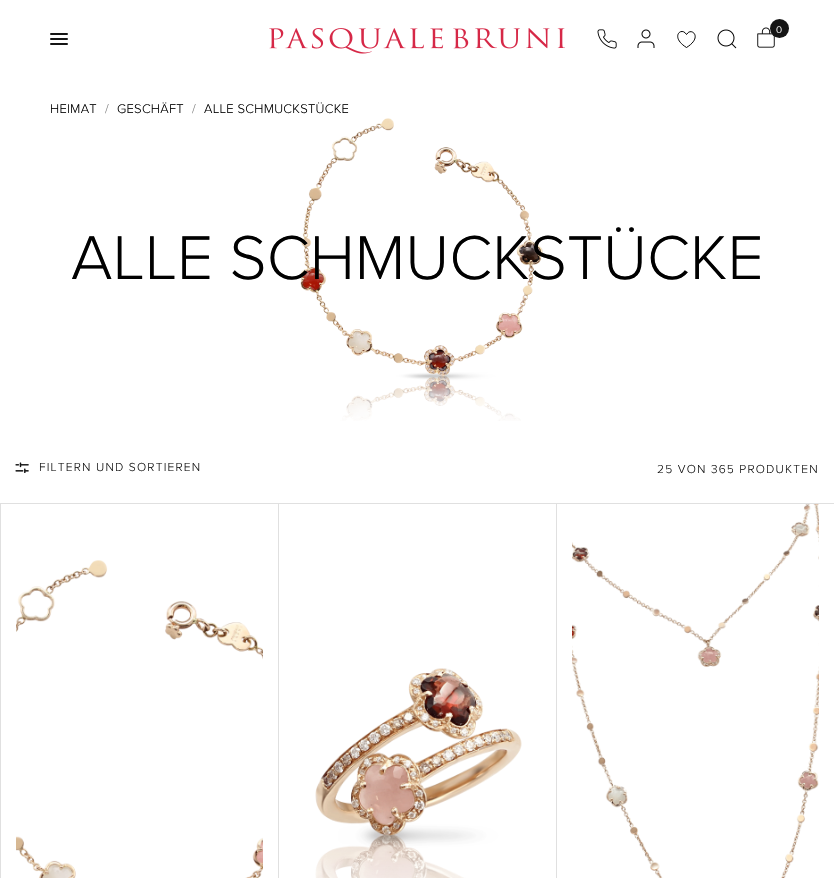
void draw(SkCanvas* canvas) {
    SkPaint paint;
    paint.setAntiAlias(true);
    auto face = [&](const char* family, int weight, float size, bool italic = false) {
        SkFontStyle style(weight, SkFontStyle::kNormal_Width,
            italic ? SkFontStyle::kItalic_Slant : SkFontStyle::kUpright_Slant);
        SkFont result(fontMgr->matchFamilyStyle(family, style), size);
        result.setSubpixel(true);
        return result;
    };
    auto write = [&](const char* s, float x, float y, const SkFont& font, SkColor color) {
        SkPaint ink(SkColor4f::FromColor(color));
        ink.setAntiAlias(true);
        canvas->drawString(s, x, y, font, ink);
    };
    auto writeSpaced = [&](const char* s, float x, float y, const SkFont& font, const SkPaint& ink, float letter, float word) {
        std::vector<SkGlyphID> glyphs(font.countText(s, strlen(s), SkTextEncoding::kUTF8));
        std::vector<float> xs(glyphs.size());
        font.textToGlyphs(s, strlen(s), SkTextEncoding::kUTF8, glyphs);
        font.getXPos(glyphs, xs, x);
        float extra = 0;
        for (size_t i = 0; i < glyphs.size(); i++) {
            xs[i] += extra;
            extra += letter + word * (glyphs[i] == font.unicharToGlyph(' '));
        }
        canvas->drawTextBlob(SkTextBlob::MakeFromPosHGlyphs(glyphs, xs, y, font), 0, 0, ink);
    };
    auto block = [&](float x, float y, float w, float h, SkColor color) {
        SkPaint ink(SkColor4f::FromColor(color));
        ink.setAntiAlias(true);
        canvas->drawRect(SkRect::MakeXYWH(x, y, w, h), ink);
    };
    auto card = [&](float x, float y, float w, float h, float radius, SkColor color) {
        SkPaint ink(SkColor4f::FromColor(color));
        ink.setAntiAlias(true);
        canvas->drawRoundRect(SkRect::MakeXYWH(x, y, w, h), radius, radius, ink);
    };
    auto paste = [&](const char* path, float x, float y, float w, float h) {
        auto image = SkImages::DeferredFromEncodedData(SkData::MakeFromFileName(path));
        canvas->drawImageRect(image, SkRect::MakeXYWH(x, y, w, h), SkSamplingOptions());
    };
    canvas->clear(SK_ColorWHITE);
    card(50, 33, 18, 2, 1, SkColorSetRGB(21, 21, 21));
    card(50, 38, 18, 2, 1, SkColorSetRGB(21, 21, 21));
    card(50, 43, 18, 2, 1, SkColorSetRGB(21, 21, 21));
    paste("pic1.png", 269, 28, 296, 26);
    paste("pic2.png", 597, 29, 20, 20);
    paste("pic3.png", 637, 29, 18, 19);
    paint.setStyle(SkPaint::kStroke_Style);
    paint.setStrokeWidth(1);
    paint.setColor(SK_ColorBLACK);
    canvas->drawPath(SkPathBuilder().moveTo(687, 34).cubicTo(691, 27, 703.5f, 37, 686.5f, 47.5f).cubicTo(669.5f, 37, 681.5f, 26, 686.5f, 34.5f).close().detach(), paint);
    paste("pic4.png", 717, 29, 20, 20);
    paste("pic5.png", 757, 27, 18, 21);
    paint.setStyle(SkPaint::kFill_Style);
    paint.setColor(SkColorSetRGB(21, 21, 21));
    canvas->drawCircle(779.5f, 28.5f, 9.5f, paint);
    auto kFont1 = face("Proxima Nova", 300, 10);
    write("0", 776, 33, kFont1, SK_ColorWHITE);
    auto kFont2 = face("Proxima Nova", 300, 13);
    paint.setColor(SK_ColorBLACK);
    writeSpaced("HEIMAT", 50, 113, kFont2, paint, 0.25f, 0);
    paint.setColor(SkColorSetRGB(128, 128, 128));
    writeSpaced("/", 105, 113, kFont2, paint, 0.25f, 0);
    paint.setColor(SK_ColorBLACK);
    writeSpaced("GESCHÄFT", 117, 113, kFont2, paint, 0.25f, 0);
    paint.setColor(SkColorSetRGB(128, 128, 128));
    writeSpaced("/", 192, 113, kFont2, paint, 0.25f, 0);
    paint.setColor(SK_ColorBLACK);
    writeSpaced("ALLE SCHMUCKSTÜCKE", 204, 113, kFont2, paint, 0.25f, 0);
    paste("pic6.png", 300, 118, 243, 303);
    auto kFont3 = face("Proxima Nova", 300, 64);
    write("ALLE SCHMUCKSTÜCKE", 71, 279, kFont3, SK_ColorBLACK);
    paste("pic7.png", 15, 462, 14, 11);
    auto kFont4 = face("Proxima Nova", 300, 12);
    paint.setColor(SkColorSetRGB(21, 21, 21));
    writeSpaced("FILTERN UND SORTIEREN", 39, 471, kFont4, paint, 1.2f, 0);
    writeSpaced("25 VON 365 PRODUKTEN", 657, 473, kFont4, paint, 1.2f, 0);
    block(0, 503, 834, 1, SkColorSetRGB(224, 224, 224));
    block(0, 503, 1, 375, SkColorSetRGB(224, 224, 224));
    paste("pic8.png", 16, 560, 247, 318);
    block(278, 503, 1, 375, SkColorSetRGB(224, 224, 224));
    paste("pic9.png", 315, 668, 207, 210);
    block(556, 503, 1, 375, SkColorSetRGB(224, 224, 224));
    paste("pic10.png", 572, 504, 247, 374);
}
